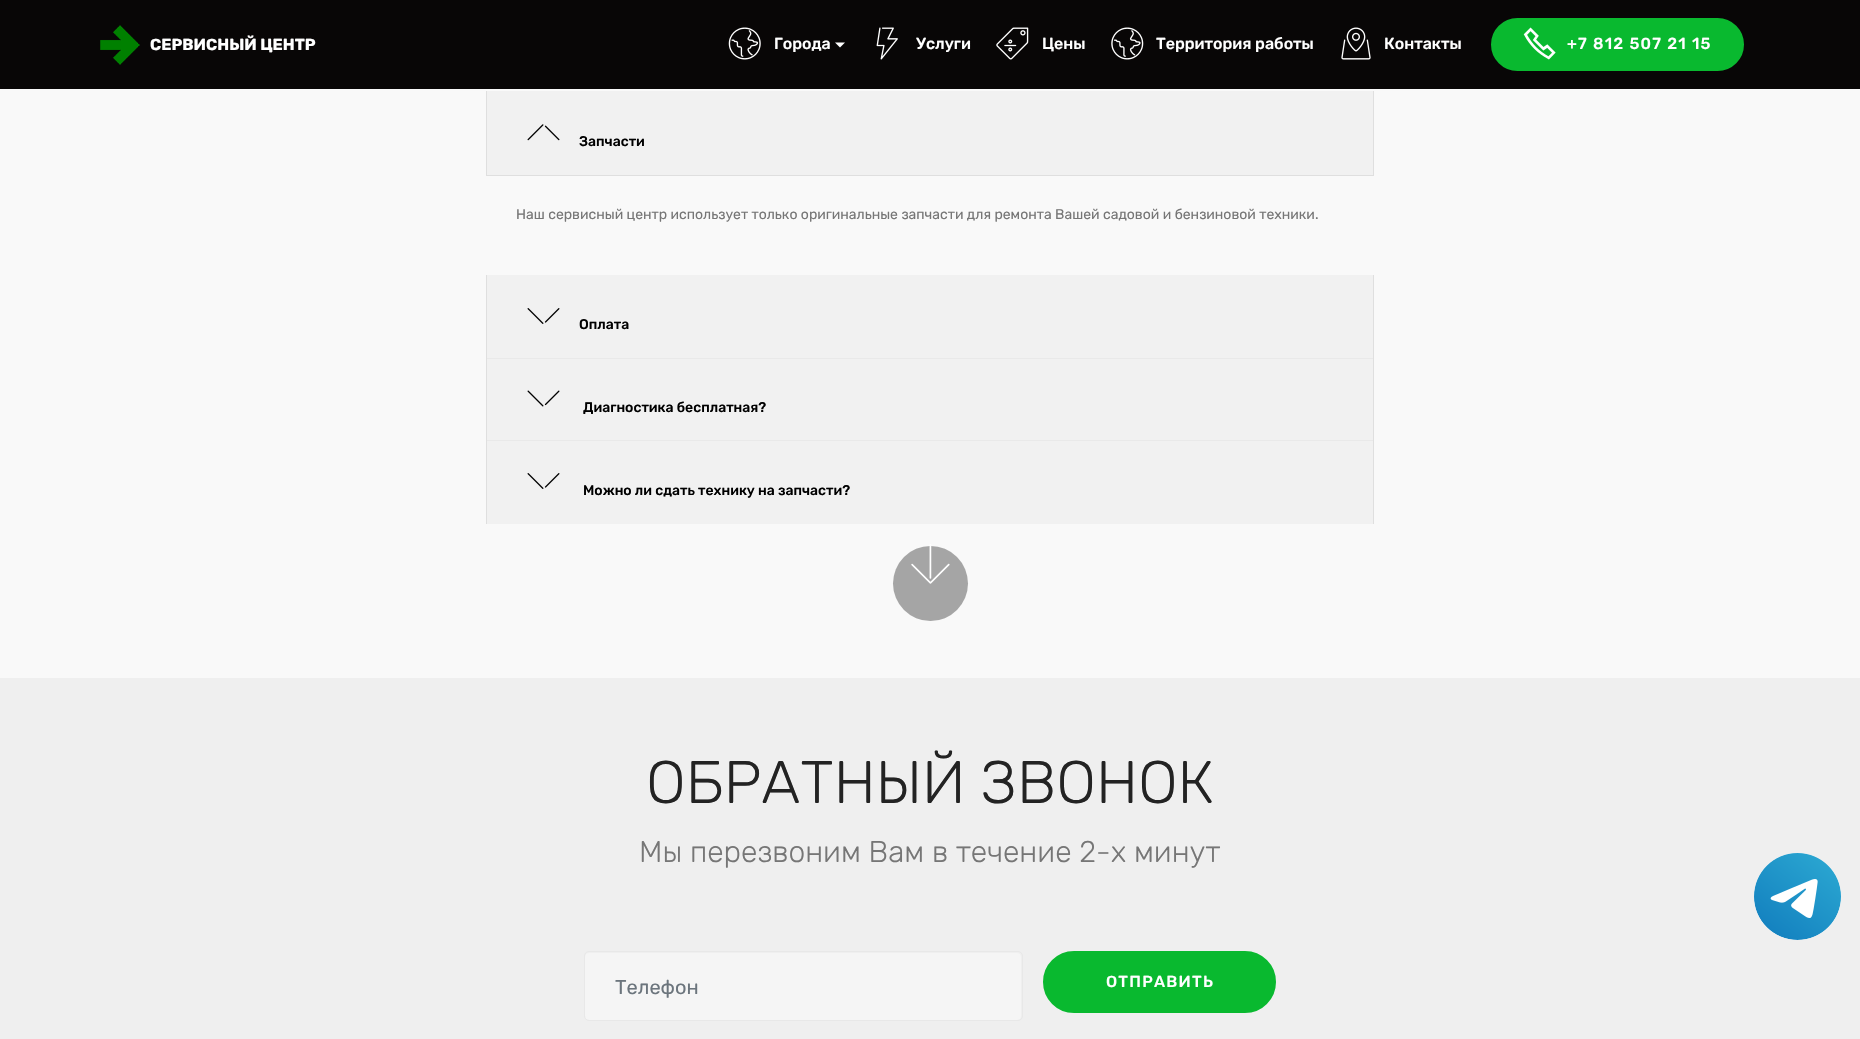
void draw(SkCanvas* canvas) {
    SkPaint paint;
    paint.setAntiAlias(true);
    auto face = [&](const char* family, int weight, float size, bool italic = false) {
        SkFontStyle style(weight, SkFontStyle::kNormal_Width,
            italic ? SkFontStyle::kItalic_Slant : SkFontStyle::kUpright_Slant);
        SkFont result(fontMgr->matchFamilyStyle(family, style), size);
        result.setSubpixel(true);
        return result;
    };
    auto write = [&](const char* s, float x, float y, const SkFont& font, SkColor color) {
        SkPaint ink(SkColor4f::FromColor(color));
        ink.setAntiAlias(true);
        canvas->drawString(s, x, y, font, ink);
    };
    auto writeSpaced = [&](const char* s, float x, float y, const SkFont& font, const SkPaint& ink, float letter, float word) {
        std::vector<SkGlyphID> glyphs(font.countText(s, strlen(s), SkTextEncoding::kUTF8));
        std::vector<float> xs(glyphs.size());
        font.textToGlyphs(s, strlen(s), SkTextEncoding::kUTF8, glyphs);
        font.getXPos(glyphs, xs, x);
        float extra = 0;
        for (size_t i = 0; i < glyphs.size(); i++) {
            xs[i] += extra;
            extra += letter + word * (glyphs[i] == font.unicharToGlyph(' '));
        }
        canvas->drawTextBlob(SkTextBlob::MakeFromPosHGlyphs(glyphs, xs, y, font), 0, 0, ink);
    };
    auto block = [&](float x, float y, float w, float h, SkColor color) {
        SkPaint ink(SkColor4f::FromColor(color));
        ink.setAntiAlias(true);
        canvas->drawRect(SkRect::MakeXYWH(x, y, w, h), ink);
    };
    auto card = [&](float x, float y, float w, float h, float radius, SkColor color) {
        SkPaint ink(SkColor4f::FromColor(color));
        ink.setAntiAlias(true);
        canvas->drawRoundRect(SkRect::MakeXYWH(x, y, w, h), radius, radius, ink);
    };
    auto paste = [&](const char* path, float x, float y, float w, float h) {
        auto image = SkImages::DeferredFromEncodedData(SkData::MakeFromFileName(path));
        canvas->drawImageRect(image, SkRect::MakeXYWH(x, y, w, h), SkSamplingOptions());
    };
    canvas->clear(SkColorSetRGB(249, 249, 249));
    block(0, 0, 1860, 89, SkColorSetRGB(8, 6, 6));
    paste("pic1.png", 100, 25, 40, 40);
    auto kFont1 = face("Rubik", 700, 16);
    write("СЕРВИСНЫЙ ЦЕНТР", 150, 50, kFont1, SK_ColorWHITE);
    paste("pic2.png", 728, 27, 33, 33);
    auto kFont2 = face("Rubik", 500, 16);
    write("Города", 774, 49, kFont2, SK_ColorWHITE);
    paint.setColor(SK_ColorWHITE);
    canvas->drawPath(SkPathBuilder().moveTo(835, 42.5f).lineTo(845, 42.5f).lineTo(840, 47.5f).close().detach(), paint);
    paste("pic3.png", 876, 27, 22, 33);
    write("Услуги", 916, 49, kFont2, SK_ColorWHITE);
    paste("pic4.png", 996, 27, 33, 33);
    write("Цены", 1042, 49, kFont2, SK_ColorWHITE);
    paste("pic5.png", 1111, 27, 33, 33);
    write("Территория работы", 1156, 49, kFont2, SK_ColorWHITE);
    paste("pic6.png", 1341, 27, 30, 33);
    write("Контакты", 1384, 49, kFont2, SK_ColorWHITE);
    paint.setColor(SkColorSetRGB(9, 185, 47));
    canvas->drawRoundRect(SkRect::MakeXYWH(1492.5f, 19.5f, 250, 50), 25, 25, paint);
    paint.setStyle(SkPaint::kStroke_Style);
    paint.setStrokeWidth(3);
    canvas->drawRoundRect(SkRect::MakeXYWH(1492.5f, 19.5f, 250, 50), 25, 25, paint);
    paste("pic7.png", 1523, 27, 33, 33);
    paint.setStyle(SkPaint::kFill_Style);
    paint.setColor(SK_ColorWHITE);
    writeSpaced("+7 812 507 21 15", 1567, 49, kFont2, paint, 1.25f, 0);
    block(487, 91, 886, 84, SkColorSetRGB(241, 241, 241));
    canvas->save();
    canvas->clipRect(SkRect::MakeXYWH(486, 91, 888, 185));
    paint.setStyle(SkPaint::kStroke_Style);
    paint.setStrokeWidth(1);
    paint.setColor(SkColorSetRGB(223, 223, 223));
    canvas->drawRect(SkRect::MakeXYWH(486.5f, 90.5f, 887, 85), paint);
    canvas->restore();
    paste("pic8.png", 527, 124, 33, 17);
    auto kFont3 = face("Rubik", 500, 14);
    write("Запчасти", 579, 146, kFont3, SK_ColorBLACK);
    auto kFont4 = face("Rubik", 400, 14);
    write("Наш сервисный центр использует только оригинальные запчасти для ремонта Вашей садовой и бензиновой техники.", 516, 219, kFont4, SkColorSetRGB(118, 118, 118));
    block(487, 275, 886, 84, SkColorSetRGB(241, 241, 241));
    canvas->save();
    canvas->clipRect(SkRect::MakeXYWH(486, 275, 888, 84));
    canvas->drawRect(SkRect::MakeXYWH(486.5f, 274.5f, 887, 85), paint);
    canvas->restore();
    paste("pic9.png", 527, 308, 33, 16);
    write("Оплата", 579, 329, kFont3, SK_ColorBLACK);
    block(487, 358, 886, 83, SkColorSetARGB(8, 0, 0, 0));
    canvas->save();
    canvas->clipRect(SkRect::MakeXYWH(486, 358, 888, 83));
    canvas->drawRect(SkRect::MakeXYWH(486.5f, 356.5f, 887, 86), paint);
    canvas->restore();
    paste("pic10.png", 527, 390, 33, 17);
    write("Диагностика бесплатная?", 583, 412, kFont3, SK_ColorBLACK);
    block(487, 440, 886, 84, SkColorSetARGB(8, 0, 0, 0));
    canvas->save();
    canvas->clipRect(SkRect::MakeXYWH(486, 440, 888, 84));
    canvas->drawRect(SkRect::MakeXYWH(486.5f, 439.5f, 887, 85), paint);
    canvas->restore();
    paste("pic11.png", 527, 473, 33, 16);
    write("Можно ли сдать технику на запчасти?", 583, 495, kFont3, SK_ColorBLACK);
    paint.setStyle(SkPaint::kFill_Style);
    paint.setColor(SkColorSetRGB(165, 165, 165));
    canvas->drawCircle(930.5f, 583.5f, 37.5f, paint);
    paste("pic12.png", 911, 544, 39, 40);
    block(0, 678, 1860, 361, SkColorSetRGB(239, 239, 239));
    auto kFont5 = face("Rubik", 300, 60);
    write("ОБРАТНЫЙ ЗВОНОК", 646, 803, kFont5, SkColorSetRGB(35, 35, 35));
    auto kFont6 = face("Rubik", 300, 30);
    write("Мы перезвоним Вам в течение 2-х минут", 639, 862, kFont6, SkColorSetRGB(118, 118, 118));
    card(585, 953, 436, 67, 4, SkColorSetRGB(245, 245, 245));
    paint.setStyle(SkPaint::kStroke_Style);
    paint.setColor(SkColorSetRGB(232, 232, 232));
    canvas->drawRoundRect(SkRect::MakeXYWH(584.5f, 951.5f, 438, 69), 4.5f, 4.5f, paint);
    auto kFont7 = face("Rubik", 400, 20);
    write("Телефон", 615, 994, kFont7, SkColorSetRGB(108, 117, 125));
    paint.setStyle(SkPaint::kFill_Style);
    paint.setColor(SkColorSetRGB(9, 185, 47));
    canvas->drawRoundRect(SkRect::MakeXYWH(1044.5f, 952.5f, 230, 59), 29.5f, 29.5f, paint);
    paint.setStyle(SkPaint::kStroke_Style);
    paint.setStrokeWidth(3);
    canvas->drawRoundRect(SkRect::MakeXYWH(1044.5f, 952.5f, 230, 59), 29.5f, 29.5f, paint);
    paint.setStyle(SkPaint::kFill_Style);
    paint.setColor(SK_ColorWHITE);
    writeSpaced("ОТПРАВИТЬ", 1106, 987, kFont2, paint, 1.25f, 0);
    canvas->drawCircle(1797.5f, 896.5f, 43.5f, paint);
    paste("pic13.png", 1754, 853, 87, 87);
}
